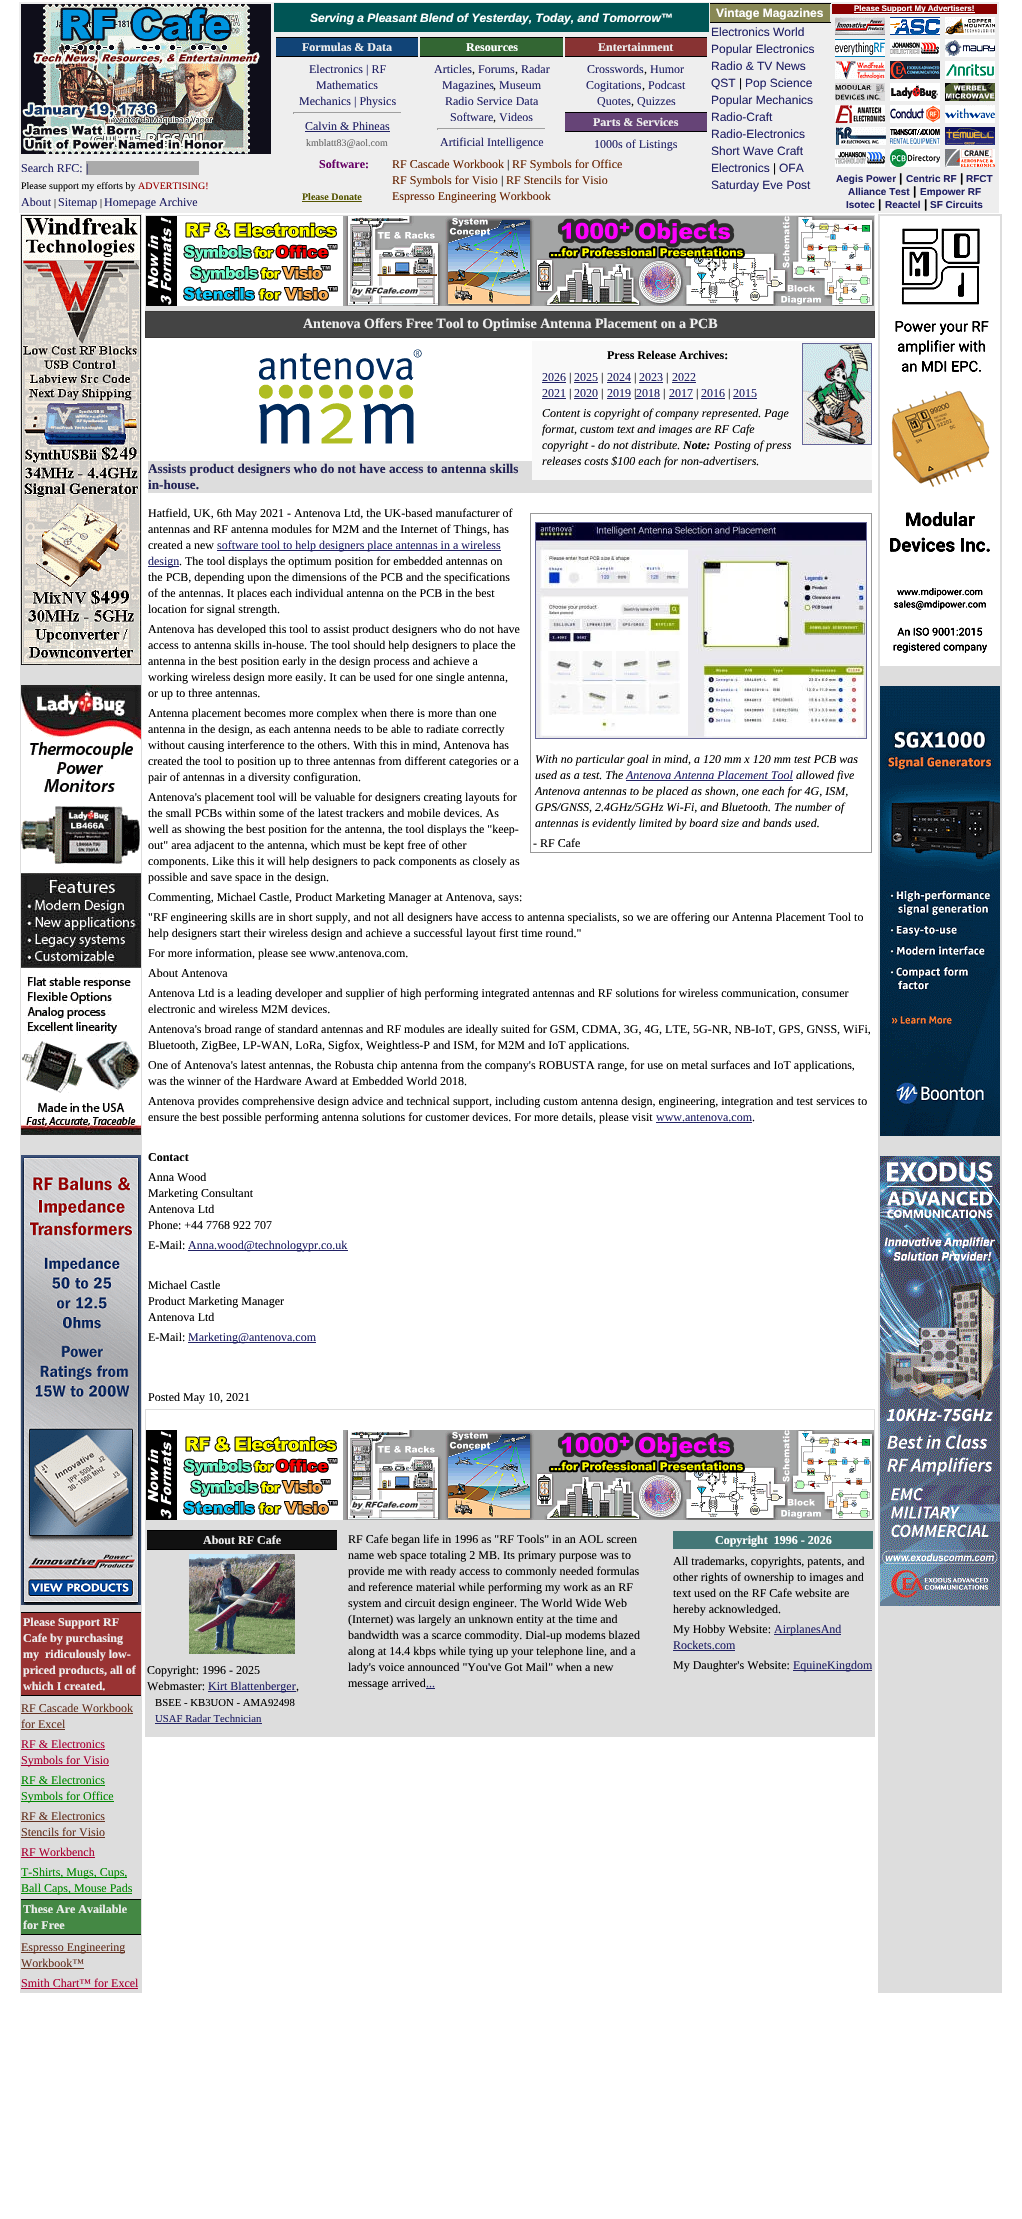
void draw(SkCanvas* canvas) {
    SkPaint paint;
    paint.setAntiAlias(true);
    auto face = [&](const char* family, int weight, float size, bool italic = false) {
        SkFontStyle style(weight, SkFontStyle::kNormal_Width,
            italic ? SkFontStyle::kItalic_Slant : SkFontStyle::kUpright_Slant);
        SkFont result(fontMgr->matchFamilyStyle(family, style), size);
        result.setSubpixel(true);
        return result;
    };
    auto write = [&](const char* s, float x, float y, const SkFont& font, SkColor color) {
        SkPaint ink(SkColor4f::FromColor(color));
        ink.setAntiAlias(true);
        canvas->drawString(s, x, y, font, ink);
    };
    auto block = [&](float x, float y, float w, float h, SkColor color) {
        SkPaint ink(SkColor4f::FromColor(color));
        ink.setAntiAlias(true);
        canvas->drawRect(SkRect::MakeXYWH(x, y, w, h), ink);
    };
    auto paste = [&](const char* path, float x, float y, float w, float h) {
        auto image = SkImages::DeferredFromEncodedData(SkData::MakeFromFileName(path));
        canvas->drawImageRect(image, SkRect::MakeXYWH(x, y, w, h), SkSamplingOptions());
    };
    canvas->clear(SK_ColorWHITE);
    block(19, 2, 980, 211, SkColorSetRGB(238, 238, 238));
    paste("pic1.png", 21, 4, 250, 150);
    auto kFont1 = face("Liberation Serif", 400, 12);
    write("Search RFC:", 21, 172, kFont1, SkColorSetRGB(34, 34, 102));
    block(86, 161, 113, 14, SkColorSetRGB(170, 170, 170));
    write("|", 86, 172, kFont1, SkColorSetRGB(34, 34, 102));
    auto kFont2 = face("Liberation Serif", 400, 10);
    write("Please support my efforts by", 21, 189, kFont2, SK_ColorBLACK);
    write("ADVERTISING!", 138, 189, kFont2, SkColorSetRGB(153, 0, 0));
    write("About", 21, 206, kFont1, SkColorSetRGB(34, 34, 102));
    write("|", 54, 206, kFont2, SK_ColorBLACK);
    write("Sitemap", 58, 206, kFont1, SkColorSetRGB(34, 34, 102));
    write("|", 100, 206, kFont2, SK_ColorBLACK);
    write("Homepage Archive", 104, 206, kFont1, SkColorSetRGB(34, 34, 102));
    block(274, 3, 435, 29, SkColorSetRGB(0, 85, 85));
    auto kFont3 = face("Liberation Sans", 700, 12, true);
    write("Serving a Pleasant Blend of Yesterday, Today, and Tomorrow™", 310, 22, kFont3, SK_ColorWHITE);
    block(710, 4, 120, 18, SkColorSetRGB(136, 136, 85));
    block(710, 3, 121, 1, SK_ColorBLACK);
    block(710, 22, 121, 1, SK_ColorBLACK);
    auto kFont4 = face("Liberation Sans", 700, 12);
    write("Vintage Magazines", 716, 17, kFont4, SK_ColorWHITE);
    auto kFont5 = face("Liberation Sans", 400, 12);
    write("Electronics World", 711, 36, kFont5, SkColorSetRGB(34, 34, 102));
    write("Popular Electronics", 711, 53, kFont5, SkColorSetRGB(34, 34, 102));
    write("Radio & TV News", 711, 70, kFont5, SkColorSetRGB(34, 34, 102));
    write("QST", 711, 87, kFont5, SkColorSetRGB(34, 34, 102));
    write("|", 739, 87, kFont5, SK_ColorBLACK);
    write("Pop Science", 745, 87, kFont5, SkColorSetRGB(34, 34, 102));
    write("Popular Mechanics", 711, 104, kFont5, SkColorSetRGB(34, 34, 102));
    write("Radio-Craft", 711, 121, kFont5, SkColorSetRGB(34, 34, 102));
    write("Radio-Electronics", 711, 138, kFont5, SkColorSetRGB(34, 34, 102));
    write("Short Wave Craft", 711, 155, kFont5, SkColorSetRGB(34, 34, 102));
    write("Electronics", 711, 172, kFont5, SkColorSetRGB(34, 34, 102));
    write("|", 773, 172, kFont5, SK_ColorBLACK);
    write("OFA", 779, 172, kFont5, SkColorSetRGB(34, 34, 102));
    write("Saturday Eve Post", 711, 189, kFont5, SkColorSetRGB(34, 34, 102));
    block(832, 4, 165, 10, SkColorSetRGB(136, 0, 0));
    block(854, 12, 121, 1, SK_ColorWHITE);
    auto kFont6 = face("Liberation Sans", 700, 8);
    write("Please Support My Advertisers!", 854, 11, kFont6, SK_ColorWHITE);
    paste("pic2.png", 834, 17, 162, 151);
    auto kFont7 = face("Liberation Sans", 700, 10);
    write("Aegis Power", 836, 182, kFont7, SkColorSetRGB(34, 34, 102));
    write("|", 899, 182, kFont4, SK_ColorBLACK);
    write("Centric RF", 906, 182, kFont7, SkColorSetRGB(34, 34, 102));
    write("|", 960, 182, kFont4, SK_ColorBLACK);
    write("RFCT", 966, 182, kFont7, SkColorSetRGB(34, 34, 102));
    write("Alliance Test", 848, 195, kFont7, SkColorSetRGB(34, 34, 102));
    write("|", 913, 195, kFont4, SK_ColorBLACK);
    write("Empower RF", 920, 195, kFont7, SkColorSetRGB(34, 34, 102));
    write("Isotec", 846, 208, kFont7, SkColorSetRGB(34, 34, 102));
    write("|", 878, 208, kFont4, SK_ColorBLACK);
    write("Reactel", 885, 208, kFont7, SkColorSetRGB(34, 34, 102));
    write("|", 924, 208, kFont4, SK_ColorBLACK);
    write("SF Circuits", 930, 208, kFont7, SkColorSetRGB(34, 34, 102));
    block(276, 38, 142, 18, SkColorSetRGB(17, 68, 119));
    block(276, 37, 142, 1, SK_ColorBLACK);
    block(276, 56, 142, 1, SK_ColorBLACK);
    auto kFont8 = face("Liberation Serif", 700, 12);
    write("Formulas & Data", 302, 51, kFont8, SkColorSetRGB(238, 238, 238));
    write("Electronics | RF", 309, 73, kFont1, SkColorSetRGB(34, 34, 102));
    write("Mathematics", 316, 89, kFont1, SkColorSetRGB(34, 34, 102));
    write("Mechanics | Physics", 299, 105, kFont1, SkColorSetRGB(34, 34, 102));
    block(293, 112, 109, 1, SkColorSetRGB(159, 159, 159));
    block(401, 112, 1, 2, SkColorSetRGB(238, 238, 238));
    block(293, 112, 1, 2, SkColorSetRGB(159, 159, 159));
    write("Calvin & Phineas", 305, 130, kFont1, SkColorSetRGB(34, 34, 102));
    block(305, 131, 85, 1, SkColorSetRGB(34, 34, 102));
    write("kmblatt83@aol.com", 306, 146, kFont2, SkColorSetRGB(102, 102, 102));
    block(420, 38, 143, 18, SkColorSetRGB(51, 102, 51));
    block(420, 37, 143, 1, SK_ColorBLACK);
    block(420, 56, 143, 1, SK_ColorBLACK);
    write("Resources", 466, 51, kFont8, SK_ColorWHITE);
    write("Articles", 434, 73, kFont1, SkColorSetRGB(34, 34, 102));
    write(",", 472, 73, kFont1, SK_ColorBLACK);
    write("Forums", 478, 73, kFont1, SkColorSetRGB(34, 34, 102));
    write(",", 515, 73, kFont1, SK_ColorBLACK);
    write("Radar", 521, 73, kFont1, SkColorSetRGB(34, 34, 102));
    write("Magazines", 442, 89, kFont1, SkColorSetRGB(34, 34, 102));
    write(",", 493, 89, kFont1, SK_ColorBLACK);
    write("Museum", 499, 89, kFont1, SkColorSetRGB(34, 34, 102));
    write("Radio Service Data", 445, 105, kFont1, SkColorSetRGB(34, 34, 102));
    write("Software", 450, 121, kFont1, SkColorSetRGB(34, 34, 102));
    write(",", 493, 121, kFont1, SK_ColorBLACK);
    write("Videos", 499, 121, kFont1, SkColorSetRGB(34, 34, 102));
    block(437, 128, 109, 1, SkColorSetRGB(159, 159, 159));
    block(545, 128, 1, 2, SkColorSetRGB(238, 238, 238));
    block(437, 128, 1, 2, SkColorSetRGB(159, 159, 159));
    write("Artificial Intelligence", 440, 146, kFont1, SkColorSetRGB(34, 34, 102));
    block(565, 38, 142, 18, SkColorSetRGB(136, 51, 51));
    block(565, 37, 142, 1, SK_ColorBLACK);
    block(565, 56, 142, 1, SK_ColorBLACK);
    write("Entertainment", 598, 51, kFont8, SkColorSetRGB(238, 238, 238));
    write("Crosswords", 587, 73, kFont1, SkColorSetRGB(34, 34, 102));
    write(",", 644, 73, kFont1, SK_ColorBLACK);
    write("Humor", 650, 73, kFont1, SkColorSetRGB(34, 34, 102));
    write("Cogitations", 586, 89, kFont1, SkColorSetRGB(34, 34, 102));
    write(",", 642, 89, kFont1, SK_ColorBLACK);
    write("Podcast", 648, 89, kFont1, SkColorSetRGB(34, 34, 102));
    write("Quotes", 597, 105, kFont1, SkColorSetRGB(34, 34, 102));
    write(",", 631, 105, kFont1, SK_ColorBLACK);
    write("Quizzes", 637, 105, kFont1, SkColorSetRGB(34, 34, 102));
    block(565, 113, 142, 18, SkColorSetRGB(102, 68, 119));
    block(565, 112, 142, 1, SK_ColorBLACK);
    block(565, 131, 142, 1, SK_ColorBLACK);
    write("Parts & Services", 593, 126, kFont8, SkColorSetRGB(238, 238, 238));
    write("1000s of Listings", 594, 148, kFont1, SkColorSetRGB(34, 34, 102));
    write("Software:", 319, 168, kFont8, SkColorSetRGB(102, 0, 102));
    auto kFont9 = face("Liberation Serif", 700, 10);
    write("Please Donate", 302, 200, kFont9, SkColorSetRGB(85, 85, 0));
    block(302, 201, 60, 1, SkColorSetRGB(85, 85, 0));
    write("RF Cascade Workbook", 392, 168, kFont1, SkColorSetRGB(102, 34, 0));
    write("|", 507, 168, kFont1, SK_ColorBLACK);
    write("RF Symbols for Office", 512, 168, kFont1, SkColorSetRGB(102, 34, 0));
    write("RF Symbols for Visio", 392, 184, kFont1, SkColorSetRGB(102, 34, 0));
    write("|", 501, 184, kFont1, SK_ColorBLACK);
    write("RF Stencils for Visio", 506, 184, kFont1, SkColorSetRGB(102, 34, 0));
    write("Espresso Engineering Workbook", 392, 200, kFont1, SkColorSetRGB(102, 34, 0));
    block(145, 215, 730, 96, SkColorSetRGB(221, 221, 221));
    paste("pic3.png", 146, 216, 728, 90);
    block(145, 311, 730, 27, SkColorSetRGB(59, 57, 56));
    block(146, 312, 728, 25, SkColorSetRGB(68, 68, 68));
    auto kFont10 = face("Liberation Serif", 700, 14);
    write("Antenova Offers Free Tool to Optimise Antenna Placement on a PCB", 303, 328, kFont10, SkColorSetRGB(238, 238, 238));
    paste("pic4.png", 259, 349, 163, 95);
    block(148, 461, 724, 32, SkColorSetRGB(221, 221, 221));
    block(532, 341, 340, 139, SkColorSetRGB(249, 249, 249));
    write("Press Release Archives:", 607, 359, kFont8, SK_ColorBLACK);
    paint.setStyle(SkPaint::kStroke_Style);
    paint.setStrokeWidth(1);
    paint.setColor(SkColorSetRGB(102, 102, 153));
    canvas->drawRect(SkRect::MakeXYWH(802.5f, 343.5f, 69, 101), paint);
    paste("pic5.png", 803, 344, 68, 100);
    write("2026", 542, 381, kFont1, SkColorSetRGB(34, 34, 102));
    block(542, 382, 24, 1, SkColorSetRGB(34, 34, 102));
    write("|", 569, 381, kFont1, SK_ColorBLACK);
    write("2025", 574, 381, kFont1, SkColorSetRGB(34, 34, 102));
    block(574, 382, 24, 1, SkColorSetRGB(34, 34, 102));
    write("|", 601, 381, kFont1, SK_ColorBLACK);
    write("2024", 607, 381, kFont1, SkColorSetRGB(34, 34, 102));
    block(607, 382, 24, 1, SkColorSetRGB(34, 34, 102));
    write("|", 634, 381, kFont1, SK_ColorBLACK);
    write("2023", 639, 381, kFont1, SkColorSetRGB(34, 34, 102));
    block(639, 382, 24, 1, SkColorSetRGB(34, 34, 102));
    write("|", 666, 381, kFont1, SK_ColorBLACK);
    write("2022", 672, 381, kFont1, SkColorSetRGB(34, 34, 102));
    block(672, 382, 24, 1, SkColorSetRGB(34, 34, 102));
    write("2021", 542, 397, kFont1, SkColorSetRGB(34, 34, 102));
    block(542, 398, 24, 1, SkColorSetRGB(34, 34, 102));
    write("|", 569, 397, kFont1, SK_ColorBLACK);
    write("2020", 574, 397, kFont1, SkColorSetRGB(34, 34, 102));
    block(574, 398, 24, 1, SkColorSetRGB(34, 34, 102));
    write("|", 601, 397, kFont1, SK_ColorBLACK);
    write("2019", 607, 397, kFont1, SkColorSetRGB(34, 34, 102));
    block(607, 398, 24, 1, SkColorSetRGB(34, 34, 102));
    write("|", 634, 397, kFont1, SK_ColorBLACK);
    write("2018", 636, 397, kFont1, SkColorSetRGB(34, 34, 102));
    block(636, 398, 24, 1, SkColorSetRGB(34, 34, 102));
    write("|", 663, 397, kFont1, SK_ColorBLACK);
    write("2017", 669, 397, kFont1, SkColorSetRGB(34, 34, 102));
    block(669, 398, 24, 1, SkColorSetRGB(34, 34, 102));
    write("|", 696, 397, kFont1, SK_ColorBLACK);
    write("2016", 701, 397, kFont1, SkColorSetRGB(34, 34, 102));
    block(701, 398, 24, 1, SkColorSetRGB(34, 34, 102));
    write("|", 728, 397, kFont1, SK_ColorBLACK);
    write("2015", 733, 397, kFont1, SkColorSetRGB(34, 34, 102));
    block(733, 398, 24, 1, SkColorSetRGB(34, 34, 102));
    auto kFont11 = face("Liberation Serif", 400, 12, true);
    write("Content is copyright of company represented. Page", 542, 417, kFont11, SK_ColorBLACK);
    write("format, custom text and images are RF Cafe", 542, 433, kFont11, SK_ColorBLACK);
    write("copyright - do not distribute.", 542, 449, kFont11, SK_ColorBLACK);
    auto kFont12 = face("Liberation Serif", 700, 12, true);
    write("Note:", 683, 449, kFont12, SK_ColorBLACK);
    write("Posting of press", 714, 449, kFont11, SK_ColorBLACK);
    write("releases costs $100 each for non-advertisers.", 542, 465, kFont11, SK_ColorBLACK);
    auto kFont13 = face("Liberation Serif", 700, 13.2f);
    write("Assists product designers who do not have access to antenna skills", 148, 473, kFont13, SkColorSetRGB(34, 34, 85));
    write("in-house.", 148, 489, kFont13, SkColorSetRGB(34, 34, 85));
    write("Hatfield, UK, 6th May 2021 - Antenova Ltd, the UK-based manufacturer of", 148, 517, kFont1, SK_ColorBLACK);
    write("antennas and RF antenna modules for M2M and the Internet of Things, has", 148, 533, kFont1, SK_ColorBLACK);
    write("created a new", 148, 549, kFont1, SK_ColorBLACK);
    block(217, 550, 284, 1, SkColorSetRGB(34, 34, 102));
    write("software tool to help designers place antennas in a wireless", 217, 549, kFont1, SkColorSetRGB(34, 34, 102));
    block(148, 566, 31, 1, SkColorSetRGB(34, 34, 102));
    write("design", 148, 565, kFont1, SkColorSetRGB(34, 34, 102));
    write(". The tool displays the optimum position for embedded antennas on", 179, 565, kFont1, SK_ColorBLACK);
    write("the PCB, depending upon the dimensions of the PCB and the specifications", 148, 581, kFont1, SK_ColorBLACK);
    write("of the antennas. It places each individual antenna on the PCB in the best", 148, 597, kFont1, SK_ColorBLACK);
    write("location for signal strength.", 148, 613, kFont1, SK_ColorBLACK);
    write("Antenova has developed this tool to assist product designers who do not have", 148, 633, kFont1, SK_ColorBLACK);
    write("access to antenna skills in-house. The tool should help designers to place the", 148, 649, kFont1, SK_ColorBLACK);
    write("antenna in the best position early in the design process and achieve a", 148, 665, kFont1, SK_ColorBLACK);
    write("working wireless design more easily. It can be used for one single antenna,", 148, 681, kFont1, SK_ColorBLACK);
    write("or up to three antennas.", 148, 697, kFont1, SK_ColorBLACK);
    write("Antenna placement becomes more complex when there is more than one", 148, 717, kFont1, SK_ColorBLACK);
    write("antenna in the design, as each antenna needs to be able to radiate correctly", 148, 733, kFont1, SK_ColorBLACK);
    write("without causing interference to the others. With this in mind, Antenova has", 148, 749, kFont1, SK_ColorBLACK);
    write("created the tool to position up to three antennas from different categories or a", 148, 765, kFont1, SK_ColorBLACK);
    write("pair of antennas in a diversity configuration.", 148, 781, kFont1, SK_ColorBLACK);
    write("Antenova's placement tool will be valuable for designers creating layouts for", 148, 801, kFont1, SK_ColorBLACK);
    write("the small PCBs within some of the latest trackers and mobile devices. As", 148, 817, kFont1, SK_ColorBLACK);
    write("well as showing the best position for the antenna, the tool displays the \"keep-", 148, 833, kFont1, SK_ColorBLACK);
    write("out\" area adjacent to the antenna, which must be kept free of other", 148, 849, kFont1, SK_ColorBLACK);
    write("components. Like this it will help designers to pack components as closely as", 148, 865, kFont1, SK_ColorBLACK);
    write("possible and save space in the design.", 148, 881, kFont1, SK_ColorBLACK);
    paint.setColor(SkColorSetRGB(153, 153, 153));
    canvas->drawRect(SkRect::MakeXYWH(530.5f, 513.5f, 341, 339), paint);
    paint.setColor(SkColorSetRGB(102, 102, 153));
    canvas->drawRect(SkRect::MakeXYWH(535.5f, 522.5f, 331, 216), paint);
    paste("pic6.png", 536, 523, 330, 215);
    write("With no particular goal in mind, a 120 mm x 120 mm test PCB was", 535, 763, kFont11, SK_ColorBLACK);
    write("used as a test. The", 535, 779, kFont11, SK_ColorBLACK);
    write("Antenova Antenna Placement Tool", 626, 779, kFont11, SkColorSetRGB(34, 34, 102));
    block(626, 780, 167, 1, SkColorSetRGB(34, 34, 102));
    write("allowed five", 796, 779, kFont11, SK_ColorBLACK);
    write("Antenova antennas to be placed as shown, one each for 4G, ISM,", 535, 795, kFont11, SK_ColorBLACK);
    write("GPS/GNSS, 2.4GHz/5GHz Wi-Fi, and Bluetooth. The number of", 535, 811, kFont11, SK_ColorBLACK);
    write("antennas is evidently limited by board size and bands used.", 535, 827, kFont11, SK_ColorBLACK);
    write("- RF Cafe", 533, 847, kFont1, SK_ColorBLACK);
    write("Commenting, Michael Castle, Product Marketing Manager at Antenova, says:", 148, 901, kFont1, SK_ColorBLACK);
    write("\"RF engineering skills are in short supply, and not all designers have access to antenna specialists, so we are offering our Antenna Placement Tool to", 148, 921, kFont1, SK_ColorBLACK);
    write("help designers start their wireless design and achieve a successful layout first time round.\"", 148, 937, kFont1, SK_ColorBLACK);
    write("For more information, please see www.antenova.com.", 148, 957, kFont1, SK_ColorBLACK);
    write("About Antenova", 148, 977, kFont1, SK_ColorBLACK);
    write("Antenova Ltd is a leading developer and supplier of high performing integrated antennas and RF solutions for wireless communication, consumer", 148, 997, kFont1, SK_ColorBLACK);
    write("electronic and wireless M2M devices.", 148, 1013, kFont1, SK_ColorBLACK);
    write("Antenova's broad range of standard antennas and RF modules are ideally suited for GSM, CDMA, 3G, 4G, LTE, 5G-NR, NB-IoT, GPS, GNSS, WiFi,", 148, 1033, kFont1, SK_ColorBLACK);
    write("Bluetooth, ZigBee, LP-WAN, LoRa, Sigfox, Weightless-P and ISM, for M2M and IoT applications.", 148, 1049, kFont1, SK_ColorBLACK);
    write("One of Antenova's latest antennas, the Robusta chip antenna from the company's ROBUSTA range, for use on metal surfaces and IoT applications,", 148, 1069, kFont1, SK_ColorBLACK);
    write("was the winner of the Hardware Award at Embedded World 2018.", 148, 1085, kFont1, SK_ColorBLACK);
    write("Antenova provides comprehensive design advice and technical support, including custom antenna design, engineering, integration and test services to", 148, 1105, kFont1, SK_ColorBLACK);
    write("ensure the best possible performing antenna solutions for customer devices. For more details, please visit", 148, 1121, kFont1, SK_ColorBLACK);
    write("www.antenova.com", 656, 1121, kFont1, SkColorSetRGB(34, 34, 102));
    block(656, 1122, 96, 1, SkColorSetRGB(34, 34, 102));
    write(".", 752, 1121, kFont1, SK_ColorBLACK);
    write("Contact", 148, 1161, kFont8, SK_ColorBLACK);
    write("Anna Wood", 148, 1181, kFont1, SK_ColorBLACK);
    write("Marketing Consultant", 148, 1197, kFont1, SK_ColorBLACK);
    write("Antenova Ltd", 148, 1213, kFont1, SK_ColorBLACK);
    write("Phone: +44 7768 922 707", 148, 1229, kFont1, SK_ColorBLACK);
    write("E-Mail:", 148, 1249, kFont1, SK_ColorBLACK);
    block(188, 1250, 160, 1, SkColorSetRGB(34, 34, 102));
    write("Anna.wood@technologypr.co.uk", 188, 1249, kFont1, SkColorSetRGB(34, 34, 102));
    write("Michael Castle", 148, 1289, kFont1, SK_ColorBLACK);
    write("Product Marketing Manager", 148, 1305, kFont1, SK_ColorBLACK);
    write("Antenova Ltd", 148, 1321, kFont1, SK_ColorBLACK);
    write("E-Mail:", 148, 1341, kFont1, SK_ColorBLACK);
    block(188, 1342, 128, 1, SkColorSetRGB(34, 34, 102));
    write("Marketing@antenova.com", 188, 1341, kFont1, SkColorSetRGB(34, 34, 102));
    write("Posted May 10, 2021", 148, 1401, kFont1, SK_ColorBLACK);
    block(145, 1409, 730, 328, SkColorSetRGB(221, 221, 221));
    block(146, 1410, 728, 20, SK_ColorWHITE);
    paste("pic3.png", 146, 1430, 728, 90);
    block(147, 1531, 190, 18, SkColorSetRGB(17, 17, 17));
    block(147, 1530, 190, 1, SK_ColorBLACK);
    block(147, 1549, 190, 1, SK_ColorBLACK);
    write("About RF Cafe", 203, 1544, kFont8, SkColorSetRGB(238, 238, 238));
    paste("pic7.png", 189, 1554, 106, 100);
    write("Copyright: 1996 - 2025", 147, 1674, kFont1, SK_ColorBLACK);
    write("Webmaster:", 147, 1690, kFont1, SK_ColorBLACK);
    block(208, 1691, 88, 1, SkColorSetRGB(34, 34, 102));
    write("Kirt Blattenberger", 208, 1690, kFont1, SkColorSetRGB(34, 34, 102));
    write(",", 296, 1690, kFont1, SK_ColorBLACK);
    auto kFont14 = face("Liberation Serif", 400, 10.75f);
    write("BSEE - KB3UON - AMA92498", 155, 1706, kFont14, SK_ColorBLACK);
    write("USAF Radar Technician", 155, 1722, kFont14, SkColorSetRGB(34, 34, 102));
    block(155, 1723, 107, 1, SkColorSetRGB(34, 34, 102));
    write("RF Cafe began life in 1996 as \"RF Tools\" in an AOL screen", 348, 1543, kFont1, SK_ColorBLACK);
    write("name web space totaling 2 MB. Its primary purpose was to", 348, 1559, kFont1, SK_ColorBLACK);
    write("provide me with ready access to commonly needed formulas", 348, 1575, kFont1, SK_ColorBLACK);
    write("and reference material while performing my work as an RF", 348, 1591, kFont1, SK_ColorBLACK);
    write("system and circuit design engineer. The World Wide Web", 348, 1607, kFont1, SK_ColorBLACK);
    write("(Internet) was largely an unknown entity at the time and", 348, 1623, kFont1, SK_ColorBLACK);
    write("bandwidth was a scarce commodity. Dial-up modems blazed", 348, 1639, kFont1, SK_ColorBLACK);
    write("along at 14.4 kbps while tying up your telephone line, and a", 348, 1655, kFont1, SK_ColorBLACK);
    write("lady's voice announced \"You've Got Mail\" when a new", 348, 1671, kFont1, SK_ColorBLACK);
    write("message arrived", 348, 1687, kFont1, SK_ColorBLACK);
    write("...", 426, 1687, kFont1, SkColorSetRGB(34, 34, 102));
    block(426, 1688, 9, 1, SkColorSetRGB(34, 34, 102));
    block(673, 1531, 200, 18, SkColorSetRGB(68, 119, 119));
    write("Copyright  1996 - 2026", 715, 1544, kFont8, SK_ColorWHITE);
    write("All trademarks, copyrights, patents, and", 673, 1565, kFont1, SK_ColorBLACK);
    write("other rights of ownership to images and", 673, 1581, kFont1, SK_ColorBLACK);
    write("text used on the RF Cafe website are", 673, 1597, kFont1, SK_ColorBLACK);
    write("hereby acknowledged.", 673, 1613, kFont1, SK_ColorBLACK);
    write("My Hobby Website:", 673, 1633, kFont1, SK_ColorBLACK);
    block(774, 1634, 67, 1, SkColorSetRGB(34, 34, 102));
    write("AirplanesAnd", 774, 1633, kFont1, SkColorSetRGB(34, 34, 102));
    write("Rockets.com", 673, 1649, kFont1, SkColorSetRGB(34, 34, 102));
    block(673, 1650, 62, 1, SkColorSetRGB(34, 34, 102));
    write("My Daughter's Website:", 673, 1669, kFont1, SK_ColorBLACK);
    block(793, 1670, 79, 1, SkColorSetRGB(34, 34, 102));
    write("EquineKingdom", 793, 1669, kFont1, SkColorSetRGB(34, 34, 102));
    block(878, 214, 124, 1779, SkColorSetRGB(221, 221, 221));
    paste("pic8.png", 880, 216, 120, 450);
    paste("pic9.png", 880, 686, 120, 450);
    paste("pic10.png", 880, 1156, 120, 450);
    block(20, 214, 122, 1779, SkColorSetRGB(221, 221, 221));
    paste("pic11.png", 21, 215, 120, 450);
    paste("pic12.png", 21, 685, 120, 450);
    paste("pic13.png", 21, 1155, 120, 450);
    block(21, 1613, 120, 82, SkColorSetRGB(153, 51, 51));
    block(21, 1612, 120, 1, SK_ColorBLACK);
    block(21, 1695, 120, 1, SK_ColorBLACK);
    write("Please Support RF", 23, 1626, kFont8, SkColorSetRGB(238, 238, 238));
    write("Cafe by purchasing", 23, 1642, kFont8, SkColorSetRGB(238, 238, 238));
    write("my  ridiculously low-", 23, 1658, kFont8, SkColorSetRGB(238, 238, 238));
    write("priced products, all of", 23, 1674, kFont8, SkColorSetRGB(238, 238, 238));
    write("which I created.", 23, 1690, kFont8, SkColorSetRGB(238, 238, 238));
    write("RF Cascade Workbook", 21, 1712, kFont1, SkColorSetRGB(102, 51, 34));
    block(21, 1713, 112, 1, SkColorSetRGB(102, 51, 34));
    write("for Excel", 21, 1728, kFont1, SkColorSetRGB(102, 51, 34));
    block(21, 1729, 44, 1, SkColorSetRGB(102, 51, 34));
    write("RF & Electronics", 21, 1748, kFont1, SkColorSetRGB(170, 0, 51));
    block(21, 1749, 84, 1, SkColorSetRGB(170, 0, 51));
    block(21, 1765, 88, 1, SkColorSetRGB(170, 0, 51));
    write("Symbols for Visio", 21, 1764, kFont1, SkColorSetRGB(170, 0, 51));
    write("RF & Electronics", 21, 1784, kFont1, SkColorSetRGB(0, 136, 0));
    block(21, 1785, 84, 1, SkColorSetRGB(0, 136, 0));
    block(21, 1801, 93, 1, SkColorSetRGB(0, 136, 0));
    write("Symbols for Office", 21, 1800, kFont1, SkColorSetRGB(0, 136, 0));
    write("RF & Electronics", 21, 1820, kFont1, SkColorSetRGB(102, 51, 34));
    block(21, 1821, 84, 1, SkColorSetRGB(102, 51, 34));
    write("Stencils for Visio", 21, 1836, kFont1, SkColorSetRGB(102, 51, 34));
    block(21, 1837, 84, 1, SkColorSetRGB(102, 51, 34));
    write("RF Workbench", 21, 1856, kFont1, SkColorSetRGB(170, 0, 51));
    block(21, 1857, 74, 1, SkColorSetRGB(170, 0, 51));
    block(21, 1877, 106, 1, SkColorSetRGB(0, 136, 0));
    write("T-Shirts, Mugs, Cups,", 21, 1876, kFont1, SkColorSetRGB(0, 136, 0));
    block(21, 1893, 111, 1, SkColorSetRGB(0, 136, 0));
    write("Ball Caps, Mouse Pads", 21, 1892, kFont1, SkColorSetRGB(0, 136, 0));
    block(21, 1900, 120, 34, SkColorSetRGB(68, 136, 68));
    block(21, 1899, 120, 1, SK_ColorBLACK);
    block(21, 1934, 120, 1, SK_ColorBLACK);
    write("These Are Available", 23, 1913, kFont8, SkColorSetRGB(238, 238, 238));
    write("for Free", 23, 1929, kFont8, SkColorSetRGB(238, 238, 238));
    block(21, 1952, 104, 1, SkColorSetRGB(102, 51, 34));
    write("Espresso Engineering", 21, 1951, kFont1, SkColorSetRGB(102, 51, 34));
    write("Workbook™", 21, 1967, kFont1, SkColorSetRGB(102, 51, 34));
    block(21, 1968, 63, 1, SkColorSetRGB(102, 51, 34));
    write("Smith Chart™ for Excel", 21, 1987, kFont1, SkColorSetRGB(170, 0, 51));
    block(21, 1988, 117, 1, SkColorSetRGB(170, 0, 51));
}
